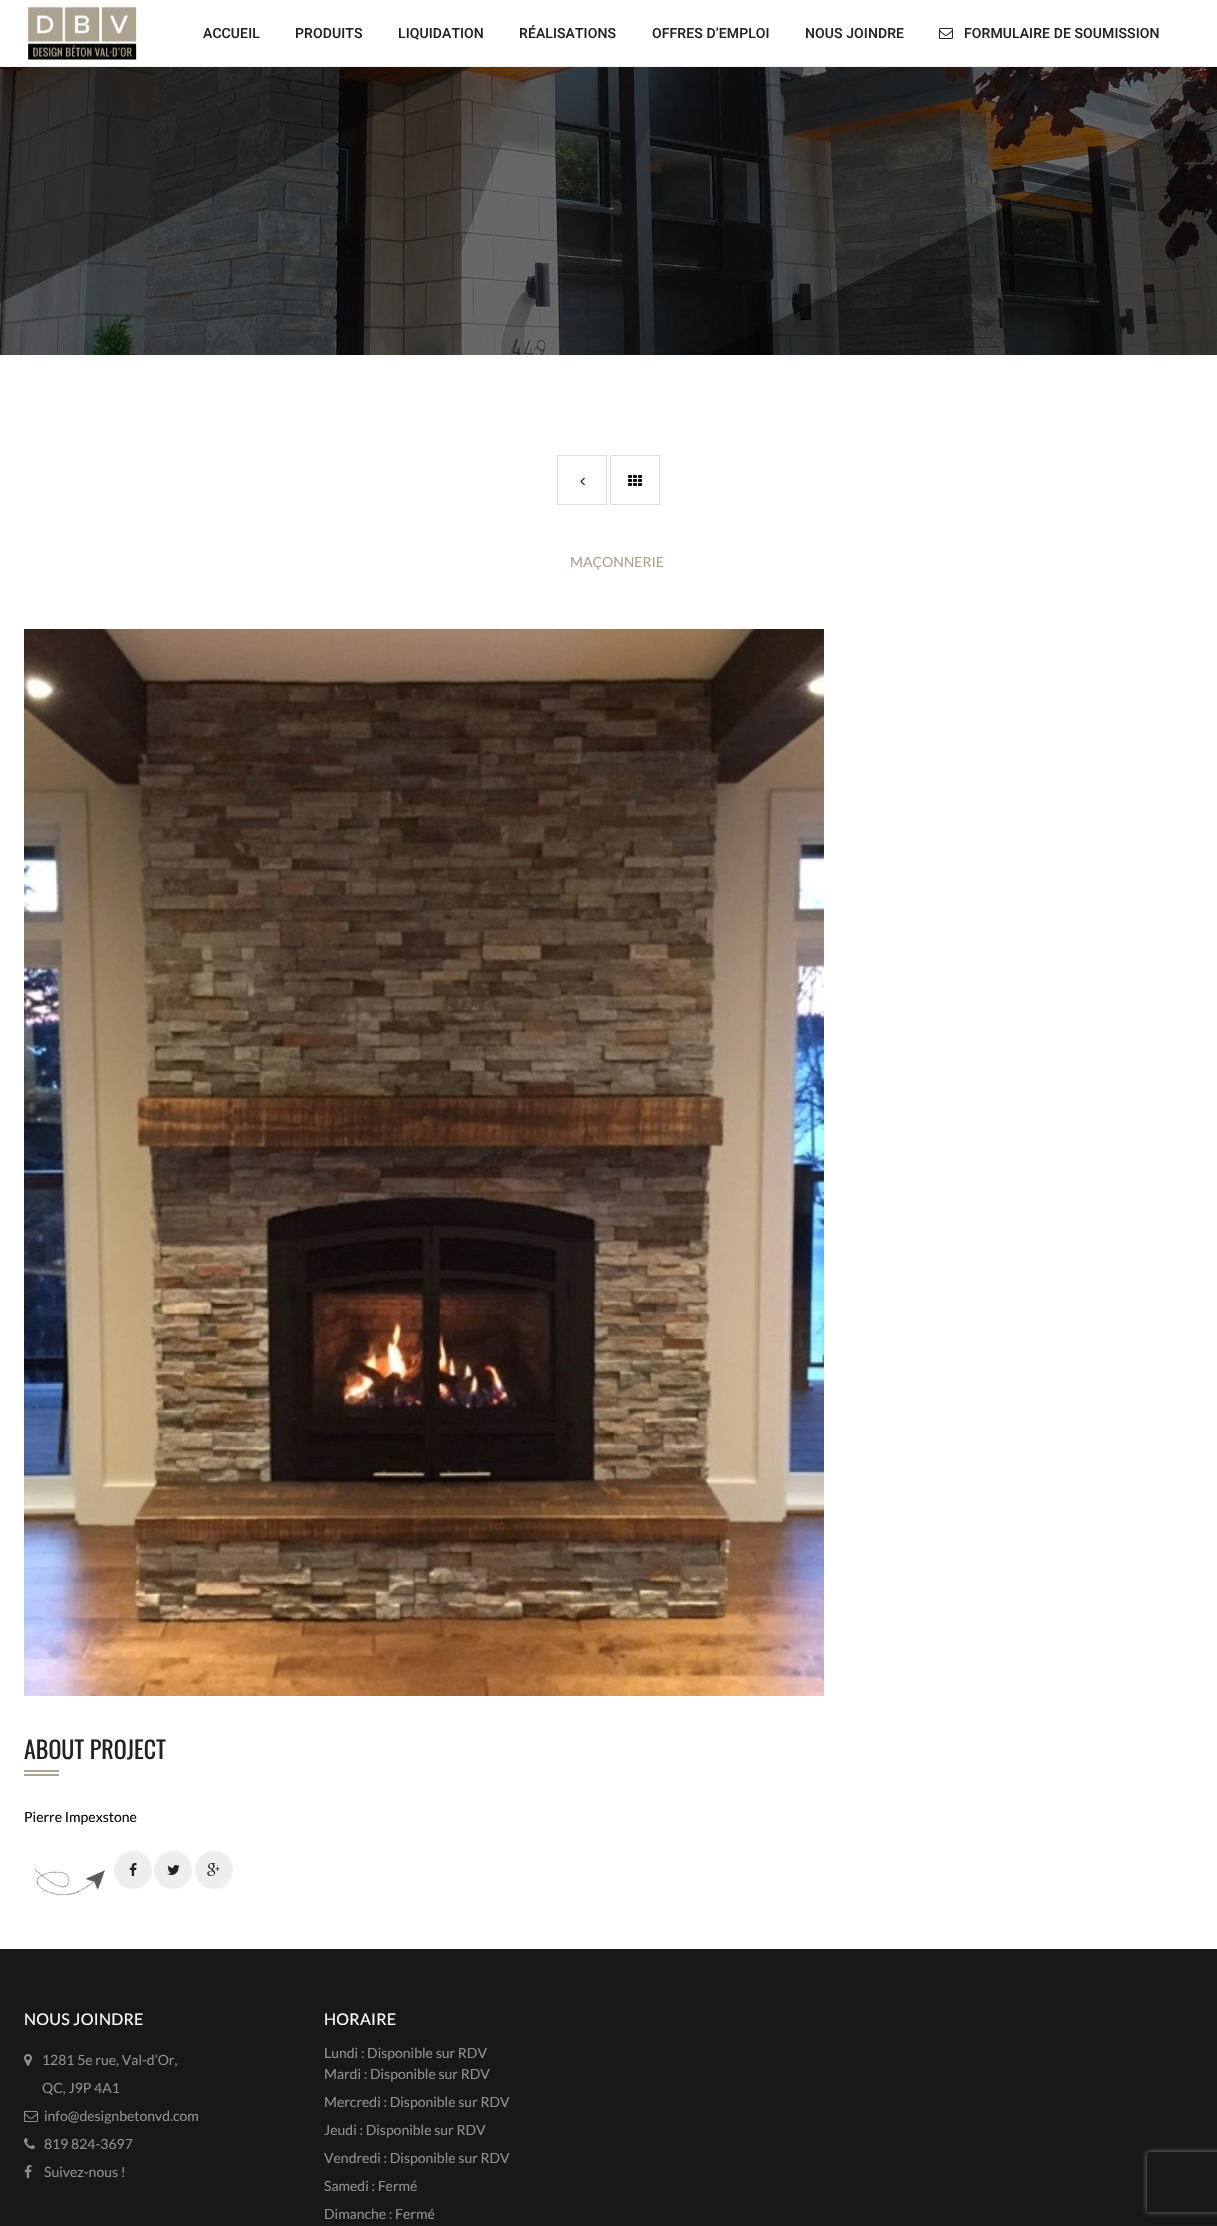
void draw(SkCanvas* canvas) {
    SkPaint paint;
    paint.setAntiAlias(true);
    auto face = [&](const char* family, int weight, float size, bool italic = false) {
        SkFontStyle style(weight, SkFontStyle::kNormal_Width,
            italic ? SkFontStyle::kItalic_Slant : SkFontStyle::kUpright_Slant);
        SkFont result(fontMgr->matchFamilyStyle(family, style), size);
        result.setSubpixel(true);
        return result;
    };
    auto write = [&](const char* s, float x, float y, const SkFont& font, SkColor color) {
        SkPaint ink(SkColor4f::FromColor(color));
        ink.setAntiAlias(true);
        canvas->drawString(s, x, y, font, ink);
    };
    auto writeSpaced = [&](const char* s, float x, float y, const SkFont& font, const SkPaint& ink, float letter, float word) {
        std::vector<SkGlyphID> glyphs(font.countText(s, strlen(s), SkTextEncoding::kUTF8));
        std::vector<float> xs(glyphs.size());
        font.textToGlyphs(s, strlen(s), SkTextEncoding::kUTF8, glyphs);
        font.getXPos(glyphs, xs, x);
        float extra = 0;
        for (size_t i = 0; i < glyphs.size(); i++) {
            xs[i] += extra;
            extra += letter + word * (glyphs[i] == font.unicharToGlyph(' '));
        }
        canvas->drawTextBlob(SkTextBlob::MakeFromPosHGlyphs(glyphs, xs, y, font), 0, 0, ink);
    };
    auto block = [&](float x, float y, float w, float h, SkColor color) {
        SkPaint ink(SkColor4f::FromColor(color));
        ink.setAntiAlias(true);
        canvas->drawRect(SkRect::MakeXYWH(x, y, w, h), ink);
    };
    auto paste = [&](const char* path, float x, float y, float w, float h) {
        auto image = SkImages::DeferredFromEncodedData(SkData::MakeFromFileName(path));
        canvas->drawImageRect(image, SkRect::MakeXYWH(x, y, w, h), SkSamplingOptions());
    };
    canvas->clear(SK_ColorWHITE);
    block(0, 66, 1217, 1, SkColorSetRGB(238, 238, 238));
    paste("pic1.png", 28, 6, 109, 54);
    auto kFont1 = face("Roboto", 500, 14);
    paint.setColor(SkColorSetRGB(34, 34, 34));
    writeSpaced("ACCUEIL", 203, 38, kFont1, paint, 0.1f, 0);
    writeSpaced("PRODUITS", 295, 38, kFont1, paint, 0.1f, 0);
    writeSpaced("LIQUIDATION", 398, 38, kFont1, paint, 0.1f, 0);
    writeSpaced("RÉALISATIONS", 519, 38, kFont1, paint, 0.1f, 0);
    writeSpaced("OFFRES D’EMPLOI", 652, 38, kFont1, paint, 0.1f, 0);
    writeSpaced("NOUS JOINDRE", 805, 38, kFont1, paint, 0.1f, 0);
    paste("pic2.png", 939, 28, 14, 11);
    writeSpaced("FORMULAIRE DE SOUMISSION", 964, 38, kFont1, paint, 0.1f, 0);
    paste("pic3.png", 0, 67, 1217, 288);
    paint.setStyle(SkPaint::kStroke_Style);
    paint.setStrokeWidth(1);
    paint.setColor(SkColorSetRGB(221, 221, 221));
    canvas->drawRect(SkRect::MakeXYWH(557.5f, 455.5f, 49, 49), paint);
    paste("pic4.png", 580, 477, 5, 9);
    canvas->drawRect(SkRect::MakeXYWH(610.5f, 455.5f, 49, 49), paint);
    paste("pic5.png", 628, 475, 14, 11);
    auto kFont2 = face("Lato", 400, 14);
    write("MAÇONNERIE", 570, 567, kFont2, SkColorSetRGB(171, 163, 144));
    paste("pic6.png", 24, 629, 800, 1067);
    auto kFont3 = face("Oswald", 400, 24);
    write("ABOUT PROJECT", 24, 1759, kFont3, SkColorSetRGB(34, 34, 34));
    block(24, 1770, 35, 2, SkColorSetRGB(171, 163, 144));
    block(24, 1774, 35, 2, SkColorSetRGB(171, 163, 144));
    write("Pierre Impexstone", 24, 1822, kFont2, SkColorSetRGB(10, 10, 10));
    paste("pic7.png", 34, 1869, 71, 27);
    paint.setStyle(SkPaint::kFill_Style);
    paint.setColor(SkColorSetRGB(238, 238, 238));
    canvas->drawCircle(133, 1870, 19, paint);
    paste("pic8.png", 129, 1863, 8, 13);
    canvas->drawCircle(173, 1870, 19, paint);
    paste("pic9.png", 167, 1865, 13, 10);
    canvas->drawCircle(214, 1870, 19, paint);
    paste("pic10.png", 207, 1863, 13, 13);
    block(0, 1949, 1217, 277, SkColorSetRGB(24, 24, 24));
    auto kFont4 = face("Lato", 400, 16);
    paint.setColor(SK_ColorWHITE);
    writeSpaced("NOUS JOINDRE", 24, 2025, kFont4, paint, 0.25f, 0);
    paste("pic11.png", 24, 2054, 8, 12);
    write("1281 5e rue, Val-d’Or,", 42, 2065, kFont2, SkColorSetRGB(143, 143, 143));
    write("QC, J9P 4A1", 42, 2093, kFont2, SkColorSetRGB(143, 143, 143));
    paste("pic12.png", 24, 2111, 14, 11);
    write("info@designbetonvd.com", 44, 2121, kFont2, SkColorSetRGB(143, 143, 143));
    paste("pic13.png", 24, 2138, 11, 11);
    write("819 824-3697", 44, 2149, kFont2, SkColorSetRGB(143, 143, 143));
    paste("pic14.png", 24, 2165, 8, 13);
    write("Suivez-nous !", 44, 2177, kFont2, SkColorSetRGB(143, 143, 143));
    writeSpaced("HORAIRE", 324, 2025, kFont4, paint, 0.25f, 0);
    write("Lundi : Disponible sur RDV", 324, 2058, kFont2, SkColorSetRGB(143, 143, 143));
    write("Mardi : Disponible sur RDV", 324, 2079, kFont2, SkColorSetRGB(143, 143, 143));
    write("Mercredi : Disponible sur RDV", 324, 2107, kFont2, SkColorSetRGB(143, 143, 143));
    write("Jeudi : Disponible sur RDV", 324, 2135, kFont2, SkColorSetRGB(143, 143, 143));
    write("Vendredi : Disponible sur RDV", 324, 2163, kFont2, SkColorSetRGB(143, 143, 143));
    write("Samedi : Fermé", 324, 2191, kFont2, SkColorSetRGB(143, 143, 143));
    write("Dimanche : Fermé", 324, 2219, kFont2, SkColorSetRGB(143, 143, 143));
    canvas->save();
    canvas->clipPath(SkPathBuilder(SkPathFillType::kEvenOdd).moveTo(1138, 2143).lineTo(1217, 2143).lineTo(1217, 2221).lineTo(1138, 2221).close().moveTo(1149, 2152).lineTo(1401, 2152).cubicTo(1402, 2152, 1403, 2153, 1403, 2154).lineTo(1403, 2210).cubicTo(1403, 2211, 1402, 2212, 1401, 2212).lineTo(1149, 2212).cubicTo(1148, 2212, 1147, 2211, 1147, 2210).lineTo(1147, 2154).cubicTo(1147, 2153, 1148, 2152, 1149, 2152).close().detach(), true);
    paint.setColor(SkColorSetRGB(128, 128, 128));
    paint.setMaskFilter(SkMaskFilter::MakeBlur(kNormal_SkBlurStyle, 2.5f));
    canvas->drawRoundRect(SkRect::MakeXYWH(1147, 2152, 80, 60), 2, 2, paint);
    paint.setMaskFilter(nullptr);
    canvas->restore();
}
